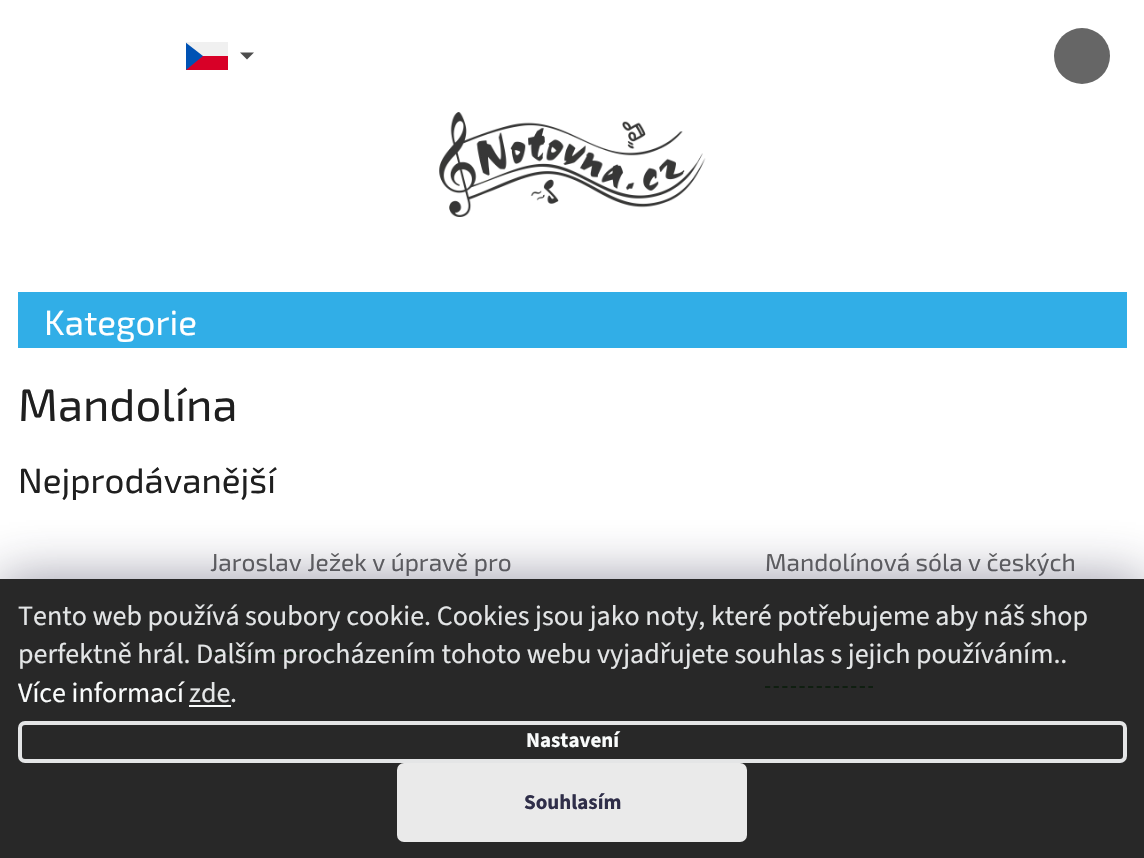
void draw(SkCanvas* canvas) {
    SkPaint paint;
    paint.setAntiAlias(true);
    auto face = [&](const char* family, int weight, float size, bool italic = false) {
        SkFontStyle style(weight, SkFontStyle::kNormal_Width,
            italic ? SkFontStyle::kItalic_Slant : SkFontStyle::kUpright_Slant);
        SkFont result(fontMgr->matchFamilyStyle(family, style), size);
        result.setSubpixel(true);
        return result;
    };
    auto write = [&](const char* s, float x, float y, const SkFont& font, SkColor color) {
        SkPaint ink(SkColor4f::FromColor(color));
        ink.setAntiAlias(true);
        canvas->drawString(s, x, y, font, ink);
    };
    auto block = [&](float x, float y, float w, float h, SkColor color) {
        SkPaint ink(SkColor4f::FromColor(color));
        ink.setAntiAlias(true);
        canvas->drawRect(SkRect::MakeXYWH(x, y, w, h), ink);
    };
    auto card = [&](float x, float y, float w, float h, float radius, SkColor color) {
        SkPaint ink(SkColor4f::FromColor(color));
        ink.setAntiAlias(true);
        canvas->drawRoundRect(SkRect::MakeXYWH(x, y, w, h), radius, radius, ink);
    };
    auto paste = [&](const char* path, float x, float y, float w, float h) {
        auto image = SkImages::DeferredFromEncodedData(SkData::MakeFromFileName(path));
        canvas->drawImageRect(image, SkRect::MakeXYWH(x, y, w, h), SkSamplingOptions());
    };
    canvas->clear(SK_ColorWHITE);
    block(186, 42, 17, 28, SkColorSetRGB(0, 82, 180));
    paint.setColor(SkColorSetRGB(216, 0, 39));
    canvas->drawPath(SkPathBuilder().moveTo(228, 56).lineTo(228, 70).lineTo(186, 70).lineTo(203, 56).close().detach(), paint);
    paint.setColor(SkColorSetRGB(240, 240, 240));
    canvas->drawPath(SkPathBuilder().moveTo(228, 42).lineTo(228, 56).lineTo(203, 56).lineTo(185, 42).close().detach(), paint);
    paint.setColor(SkColorSetRGB(77, 77, 77));
    canvas->drawPath(SkPathBuilder().moveTo(240, 52.5f).lineTo(254, 52.5f).lineTo(247, 59.5f).close().detach(), paint);
    paint.setColor(SkColorSetRGB(102, 102, 102));
    canvas->drawCircle(1082, 56, 28, paint);
    paste("pic1.png", 439, 112, 267, 105);
    block(18, 292, 1109, 56, SkColorSetRGB(49, 174, 231));
    auto kFont1 = face("Exo 2", 400, 35);
    write("Kategorie", 44, 335, kFont1, SK_ColorWHITE);
    auto kFont2 = face("Exo 2", 400, 45.5f);
    write("Mandolína", 18, 421, kFont2, SkColorSetRGB(31, 31, 31));
    write("Nejprodávanější", 18, 493, kFont1, SkColorSetRGB(31, 31, 31));
    auto kFont3 = face("Exo 2", 400, 24.5f);
    write("Jaroslav Ježek v úpravě pro", 210, 571, kFont3, SkColorSetRGB(101, 101, 101));
    paint.setStyle(SkPaint::kStroke_Style);
    paint.setStrokeWidth(1.8f);
    paint.setColor(SkColorSetRGB(0, 153, 1));
    paint.setPathEffect(SkDashPathEffect::Make({{5.25f, 3.36f}}, 0));
    canvas->drawPath(SkPathBuilder().moveTo(210, 653.5f).lineTo(318.5f, 653.5f).detach(), paint);
    paint.setPathEffect(nullptr);
    write("Mandolínová sóla v českých", 765, 571, kFont3, SkColorSetRGB(101, 101, 101));
    paint.setPathEffect(SkDashPathEffect::Make({{5.25f, 3.36f}}, 0));
    canvas->drawPath(SkPathBuilder().moveTo(765, 687).lineTo(873, 687).detach(), paint);
    paint.setPathEffect(nullptr);
    canvas->save();
    canvas->clipPath(SkPathBuilder(SkPathFillType::kEvenOdd).moveTo(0, 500).lineTo(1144, 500).lineTo(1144, 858).lineTo(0, 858).close().moveTo(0, 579).lineTo(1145, 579).lineTo(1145, 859).lineTo(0, 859).close().detach(), true);
    paint.setStyle(SkPaint::kFill_Style);
    paint.setColor(SkColorSetARGB(115, 27, 25, 57));
    paint.setMaskFilter(SkMaskFilter::MakeBlur(kNormal_SkBlurStyle, 26));
    canvas->drawRect(SkRect::MakeXYWH(0, 579, 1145, 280), paint);
    paint.setMaskFilter(nullptr);
    canvas->restore();
    block(0, 579, 1144, 279, SkColorSetARGB(230, 17, 17, 17));
    auto kFont4 = face("Source Sans 3", 400, 28);
    write("Tento web používá soubory cookie. Cookies jsou jako noty, které potřebujeme aby náš shop", 18, 625, kFont4, SkColorSetRGB(227, 229, 230));
    write("perfektně hrál. Dalším procházením tohoto webu vyjadřujete souhlas s jejich používáním..", 18, 663, kFont4, SkColorSetRGB(227, 229, 230));
    write("Více informací", 18, 702, kFont4, SkColorSetRGB(249, 251, 251));
    write("zde", 189, 702, kFont4, SkColorSetRGB(227, 229, 230));
    block(189, 705, 42, 2, SkColorSetRGB(249, 251, 251));
    write(".", 230, 702, kFont4, SkColorSetRGB(227, 229, 230));
    paint.setStyle(SkPaint::kStroke_Style);
    paint.setStrokeWidth(4);
    paint.setColor(SkColorSetARGB(230, 248, 250, 251));
    canvas->drawRoundRect(SkRect::MakeXYWH(20, 723, 1105, 38), 5, 5, paint);
    auto kFont5 = face("Source Sans 3", 700, 21);
    write("Nastavení", 526, 747, kFont5, SkColorSetRGB(249, 251, 251));
    card(397, 763, 350, 79, 7, SkColorSetARGB(230, 255, 255, 255));
    write("Souhlasím", 524, 809, kFont5, SkColorSetRGB(47, 46, 73));
}
